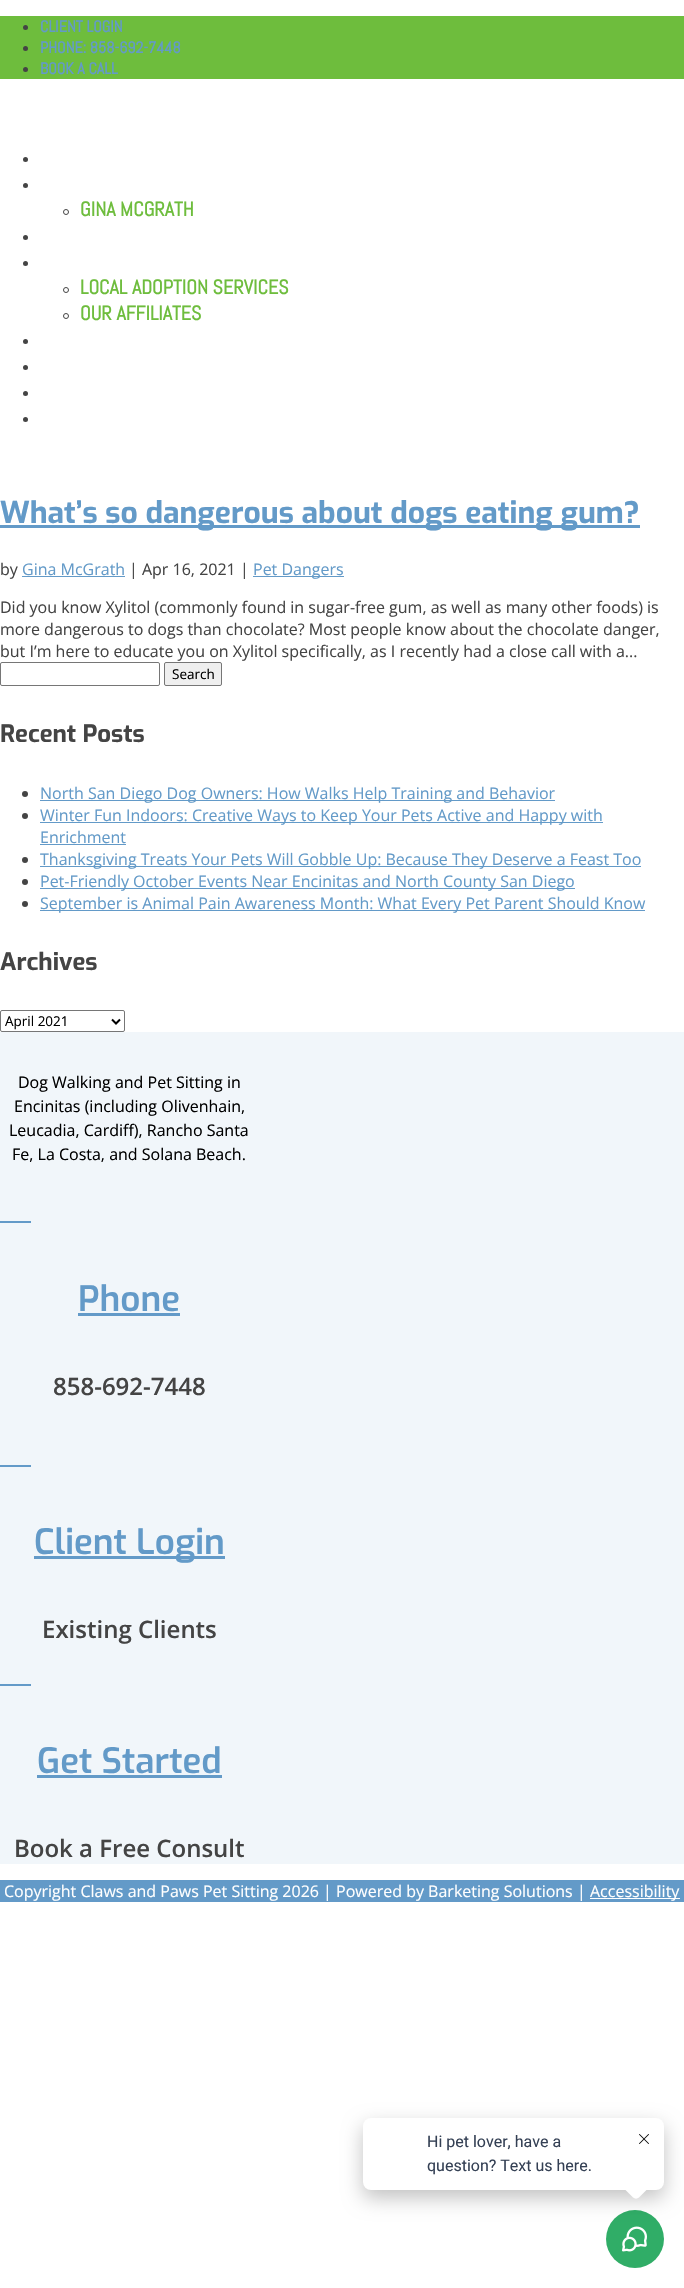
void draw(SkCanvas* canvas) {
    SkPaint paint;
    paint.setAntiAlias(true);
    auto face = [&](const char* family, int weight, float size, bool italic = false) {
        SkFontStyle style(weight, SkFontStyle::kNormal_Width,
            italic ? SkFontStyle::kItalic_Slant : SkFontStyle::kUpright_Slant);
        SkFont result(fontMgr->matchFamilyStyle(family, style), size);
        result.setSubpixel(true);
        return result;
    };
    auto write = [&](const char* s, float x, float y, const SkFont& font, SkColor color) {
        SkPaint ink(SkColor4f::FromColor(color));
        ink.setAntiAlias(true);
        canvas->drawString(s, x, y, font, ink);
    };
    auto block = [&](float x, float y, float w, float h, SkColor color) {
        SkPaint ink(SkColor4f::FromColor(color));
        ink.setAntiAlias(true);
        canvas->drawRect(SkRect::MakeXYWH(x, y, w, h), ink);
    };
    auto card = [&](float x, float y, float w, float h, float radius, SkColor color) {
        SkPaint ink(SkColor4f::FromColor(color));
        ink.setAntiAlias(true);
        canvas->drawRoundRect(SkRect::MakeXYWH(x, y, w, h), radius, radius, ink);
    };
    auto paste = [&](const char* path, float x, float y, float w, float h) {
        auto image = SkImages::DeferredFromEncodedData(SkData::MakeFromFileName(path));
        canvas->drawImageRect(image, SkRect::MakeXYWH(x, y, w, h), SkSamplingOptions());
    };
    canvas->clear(SK_ColorWHITE);
    block(0, 16, 684, 63, SkColorSetRGB(110, 189, 61));
    paint.setColor(SkColorSetRGB(68, 68, 68));
    canvas->drawCircle(25.5f, 27.5f, 2.5f, paint);
    auto kFont1 = face("Abel", 700, 16);
    write("CLIENT LOGIN", 40, 32, kFont1, SkColorSetRGB(99, 154, 200));
    canvas->drawCircle(25.5f, 48.5f, 2.5f, paint);
    write("PHONE: 858-692-7448", 40, 53, kFont1, SkColorSetRGB(99, 154, 200));
    canvas->drawCircle(25.5f, 69.5f, 2.5f, paint);
    write("BOOK A CALL", 40, 74, kFont1, SkColorSetRGB(99, 154, 200));
    canvas->drawCircle(25.5f, 159.5f, 2.5f, paint);
    canvas->drawCircle(25.5f, 185.5f, 2.5f, paint);
    paint.setStyle(SkPaint::kStroke_Style);
    paint.setStrokeWidth(1);
    canvas->drawCircle(66, 212, 2.5f, paint);
    auto kFont2 = face("Abel", 700, 20);
    write("GINA MCGRATH", 80, 216, kFont2, SkColorSetRGB(110, 189, 61));
    paint.setStyle(SkPaint::kFill_Style);
    canvas->drawCircle(25.5f, 237.5f, 2.5f, paint);
    canvas->drawCircle(25.5f, 263.5f, 2.5f, paint);
    paint.setStyle(SkPaint::kStroke_Style);
    canvas->drawCircle(66, 290, 2.5f, paint);
    write("LOCAL ADOPTION SERVICES", 80, 294, kFont2, SkColorSetRGB(110, 189, 61));
    canvas->drawCircle(66, 316, 2.5f, paint);
    write("OUR AFFILIATES", 80, 320, kFont2, SkColorSetRGB(110, 189, 61));
    paint.setStyle(SkPaint::kFill_Style);
    canvas->drawCircle(25.5f, 341.5f, 2.5f, paint);
    canvas->drawCircle(25.5f, 367.5f, 2.5f, paint);
    canvas->drawCircle(25.5f, 393.5f, 2.5f, paint);
    canvas->drawCircle(25.5f, 419.5f, 2.5f, paint);
    block(0, 525, 640, 3, SkColorSetRGB(99, 154, 200));
    auto kFont3 = face("Exo", 700, 30);
    write("What’s so dangerous about dogs eating gum?", 0, 523, kFont3, SkColorSetRGB(99, 154, 200));
    auto kFont4 = face("Open Sans", 400, 16);
    write("by", 0, 575, kFont4, SkColorSetRGB(68, 68, 68));
    write("Gina McGrath", 22, 575, kFont4, SkColorSetRGB(99, 154, 200));
    block(22, 576, 103, 1, SkColorSetRGB(99, 154, 200));
    write("| Apr 16, 2021 |", 129, 575, kFont4, SkColorSetRGB(68, 68, 68));
    block(253, 576, 91, 1, SkColorSetRGB(99, 154, 200));
    write("Pet Dangers", 253, 575, kFont4, SkColorSetRGB(99, 154, 200));
    write("Did you know Xylitol (commonly found in sugar-free gum, as well as many other foods) is", 0, 613, kFont4, SkColorSetRGB(68, 68, 68));
    write("more dangerous to dogs than chocolate? Most people know about the chocolate danger,", 0, 635, kFont4, SkColorSetRGB(68, 68, 68));
    write("but I’m here to educate you on Xylitol specifically, as I recently had a close call with a...", 0, 657, kFont4, SkColorSetRGB(68, 68, 68));
    paint.setStyle(SkPaint::kStroke_Style);
    paint.setColor(SkColorSetRGB(118, 118, 118));
    canvas->drawRoundRect(SkRect::MakeXYWH(0.5f, 662.5f, 159, 23), 1.5f, 1.5f, paint);
    paint.setStyle(SkPaint::kFill_Style);
    paint.setColor(SkColorSetRGB(239, 239, 239));
    canvas->drawRoundRect(SkRect::MakeXYWH(164.5f, 662.5f, 57, 23), 1.5f, 1.5f, paint);
    paint.setStyle(SkPaint::kStroke_Style);
    paint.setColor(SkColorSetRGB(118, 118, 118));
    canvas->drawRoundRect(SkRect::MakeXYWH(164.5f, 662.5f, 57, 23), 1.5f, 1.5f, paint);
    auto kFont5 = face("Open Sans", 400, 13.5f);
    write("Search", 172, 679, kFont5, SK_ColorBLACK);
    auto kFont6 = face("Exo", 700, 24);
    write("Recent Posts", 0, 742, kFont6, SkColorSetRGB(68, 68, 68));
    paint.setStyle(SkPaint::kFill_Style);
    paint.setColor(SkColorSetRGB(68, 68, 68));
    canvas->drawCircle(25, 794, 3, paint);
    block(40, 800, 515, 1, SkColorSetRGB(99, 154, 200));
    write("North San Diego Dog Owners: How Walks Help Training and Behavior", 40, 799, kFont4, SkColorSetRGB(99, 154, 200));
    canvas->drawCircle(25, 816, 3, paint);
    block(40, 822, 563, 1, SkColorSetRGB(99, 154, 200));
    write("Winter Fun Indoors: Creative Ways to Keep Your Pets Active and Happy with", 40, 821, kFont4, SkColorSetRGB(99, 154, 200));
    write("Enrichment", 40, 843, kFont4, SkColorSetRGB(99, 154, 200));
    block(40, 844, 86, 1, SkColorSetRGB(99, 154, 200));
    canvas->drawCircle(25, 860, 3, paint);
    block(40, 866, 601, 1, SkColorSetRGB(99, 154, 200));
    write("Thanksgiving Treats Your Pets Will Gobble Up: Because They Deserve a Feast Too", 40, 865, kFont4, SkColorSetRGB(99, 154, 200));
    canvas->drawCircle(25, 882, 3, paint);
    block(40, 888, 535, 1, SkColorSetRGB(99, 154, 200));
    write("Pet-Friendly October Events Near Encinitas and North County San Diego", 40, 887, kFont4, SkColorSetRGB(99, 154, 200));
    canvas->drawCircle(25, 904, 3, paint);
    block(40, 910, 605, 1, SkColorSetRGB(99, 154, 200));
    write("September is Animal Pain Awareness Month: What Every Pet Parent Should Know", 40, 909, kFont4, SkColorSetRGB(99, 154, 200));
    write("Archives", 0, 970, kFont6, SkColorSetRGB(68, 68, 68));
    paint.setStyle(SkPaint::kStroke_Style);
    paint.setColor(SkColorSetRGB(118, 118, 118));
    canvas->drawRoundRect(SkRect::MakeXYWH(0.5f, 1010.5f, 124, 21), 1.5f, 1.5f, paint);
    paint.setStrokeWidth(2);
    paint.setColor(SK_ColorBLACK);
    canvas->drawPath(SkPathBuilder().moveTo(112, 1019.5f).lineTo(116, 1023.5f).lineTo(120, 1019.5f).detach(), paint);
    write("April 2021", 5, 1026, kFont5, SK_ColorBLACK);
    block(0, 1032, 684, 832, SkColorSetRGB(241, 246, 250));
    write("Dog Walking and Pet Sitting in", 18, 1088, kFont4, SK_ColorBLACK);
    write("Encinitas (including Olivenhain,", 14, 1112, kFont4, SK_ColorBLACK);
    write("Leucadia, Cardiff), Rancho Santa", 9, 1136, kFont4, SK_ColorBLACK);
    write("Fe, La Costa, and Solana Beach.", 12, 1160, kFont4, SK_ColorBLACK);
    block(0, 1221, 31, 2, SkColorSetRGB(99, 154, 200));
    auto kFont7 = face("Exo", 600, 35);
    write("Phone", 78, 1311, kFont7, SkColorSetRGB(99, 154, 200));
    block(78, 1313, 102, 3, SkColorSetRGB(99, 154, 200));
    auto kFont8 = face("Open Sans", 600, 24);
    write("858-692-7448", 53, 1395, kFont8, SkColorSetRGB(68, 68, 68));
    block(0, 1465, 31, 2, SkColorSetRGB(99, 154, 200));
    block(34, 1556, 191, 3, SkColorSetRGB(99, 154, 200));
    write("Client Login", 34, 1554, kFont7, SkColorSetRGB(99, 154, 200));
    write("Existing Clients", 42, 1638, kFont8, SkColorSetRGB(68, 68, 68));
    block(0, 1684, 31, 2, SkColorSetRGB(99, 154, 200));
    write("Get Started", 37, 1773, kFont7, SkColorSetRGB(99, 154, 200));
    block(37, 1775, 185, 3, SkColorSetRGB(99, 154, 200));
    write("Book a Free Consult", 14, 1857, kFont8, SkColorSetRGB(68, 68, 68));
    block(0, 1880, 684, 22, SkColorSetRGB(99, 154, 200));
    write("Copyright Claws and Paws Pet Sitting 2026 | Powered by Barketing Solutions |", 4, 1897, kFont4, SK_ColorWHITE);
    block(590, 1898, 90, 1, SK_ColorWHITE);
    write("Accessibility", 590, 1897, kFont4, SK_ColorWHITE);
    paint.setStyle(SkPaint::kFill_Style);
    paint.setColor(SkColorSetRGB(48, 173, 103));
    canvas->drawCircle(635, 2239, 29, paint);
    paste("pic2.png", 622, 2226, 25, 26);
    paint.setColor(SkColorSetARGB(61, 0, 0, 0));
    paint.setMaskFilter(SkMaskFilter::MakeBlur(kNormal_SkBlurStyle, 10));
    canvas->drawRoundRect(SkRect::MakeXYWH(363, 2126, 301, 72), 8, 8, paint);
    paint.setMaskFilter(nullptr);
    card(363, 2118, 301, 72, 8, SK_ColorWHITE);
    auto kFont9 = face("Roboto", 400, 16);
    write("Hi pet lover, have a", 427, 2147, kFont9, SkColorSetRGB(52, 64, 84));
    write("question? Text us here.", 427, 2171, kFont9, SkColorSetRGB(52, 64, 84));
    paint.setColor(SK_ColorWHITE);
    canvas->drawPath(SkPathBuilder().moveTo(639, 2174.5f).lineTo(647.5f, 2183).cubicTo(649, 2184.5f, 649, 2187.5f, 647.5f, 2189).lineTo(639, 2197.5f).cubicTo(637.5f, 2199, 634.5f, 2199, 633, 2197.5f).lineTo(624.5f, 2189).cubicTo(623, 2187.5f, 623, 2184.5f, 624.5f, 2183).lineTo(633, 2174.5f).cubicTo(634.5f, 2173, 637.5f, 2173, 639, 2174.5f).close().detach(), paint);
    paste("pic1.png", 639, 2134, 10, 10);
}
